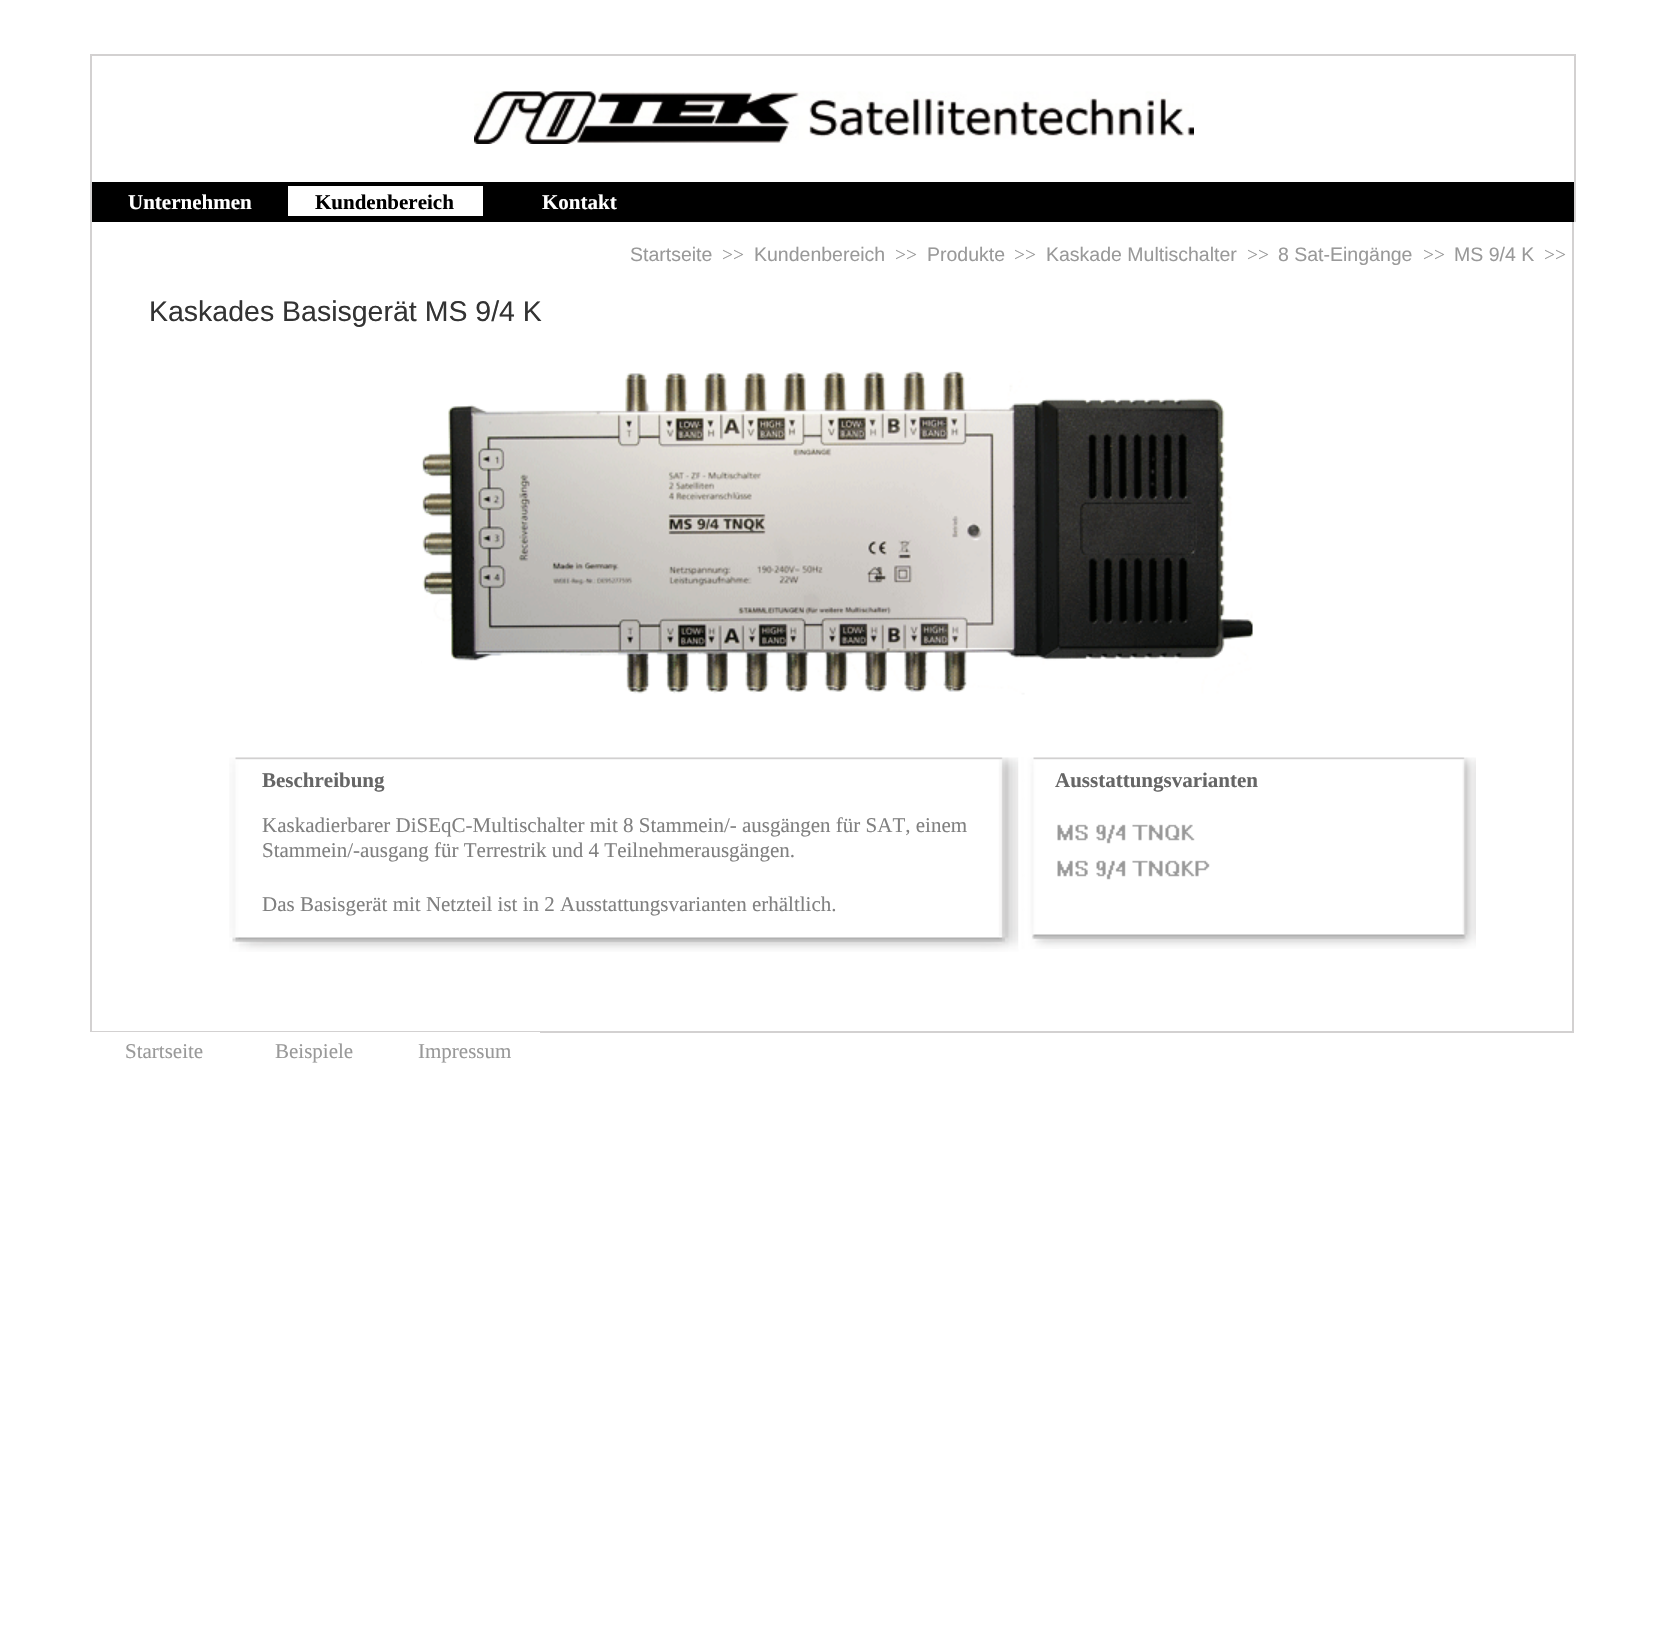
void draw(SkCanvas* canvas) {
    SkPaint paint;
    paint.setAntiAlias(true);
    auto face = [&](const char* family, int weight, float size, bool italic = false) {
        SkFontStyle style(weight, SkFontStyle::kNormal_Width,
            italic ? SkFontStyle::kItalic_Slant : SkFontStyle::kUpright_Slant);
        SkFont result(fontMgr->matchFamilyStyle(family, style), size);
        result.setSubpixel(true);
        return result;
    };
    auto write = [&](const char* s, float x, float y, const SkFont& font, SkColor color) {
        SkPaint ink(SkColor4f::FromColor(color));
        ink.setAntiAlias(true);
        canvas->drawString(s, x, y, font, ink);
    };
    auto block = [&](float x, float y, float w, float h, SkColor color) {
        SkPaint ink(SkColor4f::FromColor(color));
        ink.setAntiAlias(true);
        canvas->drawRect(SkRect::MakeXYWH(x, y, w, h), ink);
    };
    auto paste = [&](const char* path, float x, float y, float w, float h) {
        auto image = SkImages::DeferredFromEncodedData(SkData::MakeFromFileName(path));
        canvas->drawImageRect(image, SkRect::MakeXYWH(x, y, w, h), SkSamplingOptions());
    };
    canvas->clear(SK_ColorWHITE);
    block(90, 54, 1485, 2, SkColorSetRGB(211, 209, 209));
    block(1574, 54, 2, 168, SkColorSetRGB(211, 209, 209));
    block(90, 54, 2, 168, SkColorSetRGB(211, 209, 209));
    paste("pic1.png", 474, 91, 720, 53);
    block(92, 182, 1482, 40, SK_ColorBLACK);
    auto kFont1 = face("Liberation Serif", 700, 21);
    write("Unternehmen", 128, 209, kFont1, SK_ColorWHITE);
    block(288, 186, 195, 30, SK_ColorWHITE);
    write("Kundenbereich", 315, 209, kFont1, SK_ColorBLACK);
    write("Kontakt", 542, 209, kFont1, SK_ColorWHITE);
    block(1572, 222, 2, 810, SkColorSetRGB(211, 209, 209));
    block(90, 1031, 1484, 2, SkColorSetRGB(211, 209, 209));
    block(90, 222, 2, 810, SkColorSetRGB(211, 209, 209));
    auto kFont2 = face("Liberation Sans", 400, 19.5f);
    write("Startseite", 630, 261, kFont2, SkColorSetRGB(153, 153, 153));
    auto kFont3 = face("Liberation Serif", 400, 19.5f);
    write(">>", 722, 261, kFont3, SkColorSetRGB(153, 153, 153));
    write("Kundenbereich", 754, 261, kFont2, SkColorSetRGB(153, 153, 153));
    write(">>", 895, 261, kFont3, SkColorSetRGB(153, 153, 153));
    write("Produkte", 927, 261, kFont2, SkColorSetRGB(153, 153, 153));
    write(">>", 1014, 261, kFont3, SkColorSetRGB(153, 153, 153));
    write("Kaskade Multischalter", 1046, 261, kFont2, SkColorSetRGB(153, 153, 153));
    write(">>", 1247, 261, kFont3, SkColorSetRGB(153, 153, 153));
    write("8 Sat-Eingänge", 1278, 261, kFont2, SkColorSetRGB(153, 153, 153));
    write(">>", 1423, 261, kFont3, SkColorSetRGB(153, 153, 153));
    write("MS 9/4 K", 1454, 261, kFont2, SkColorSetRGB(153, 153, 153));
    write(">>", 1544, 261, kFont3, SkColorSetRGB(153, 153, 153));
    auto kFont4 = face("Liberation Sans", 400, 28.5f);
    write("Kaskades Basisgerät MS 9/4 K", 149, 321, kFont4, SkColorSetRGB(51, 51, 51));
    paste("pic2.png", 421, 371, 832, 324);
    paste("pic3.png", 229, 757, 790, 195);
    write("Beschreibung", 262, 787, kFont1, SkColorSetRGB(102, 102, 102));
    auto kFont5 = face("Liberation Serif", 400, 21);
    write("Kaskadierbarer DiSEqC-Multischalter mit 8 Stammein/- ausgängen für SAT, einem", 262, 832, kFont5, SkColorSetRGB(128, 128, 128));
    write("Stammein/-ausgang für Terrestrik und 4 Teilnehmerausgängen.", 262, 857, kFont5, SkColorSetRGB(128, 128, 128));
    write("Das Basisgerät mit Netzteil ist in 2 Ausstattungsvarianten erhältlich.", 262, 911, kFont5, SkColorSetRGB(128, 128, 128));
    paste("pic4.png", 1018, 757, 458, 192);
    write("Ausstattungsvarianten", 1055, 787, kFont1, SkColorSetRGB(102, 102, 102));
    paste("pic5.png", 1057, 824, 138, 20);
    paste("pic6.png", 1057, 860, 153, 20);
    block(90, 1032, 450, 1, SK_ColorWHITE);
    write("Startseite", 125, 1058, kFont5, SkColorSetRGB(153, 153, 153));
    write("Beispiele", 275, 1058, kFont5, SkColorSetRGB(153, 153, 153));
    write("Impressum", 418, 1058, kFont5, SkColorSetRGB(153, 153, 153));
}
